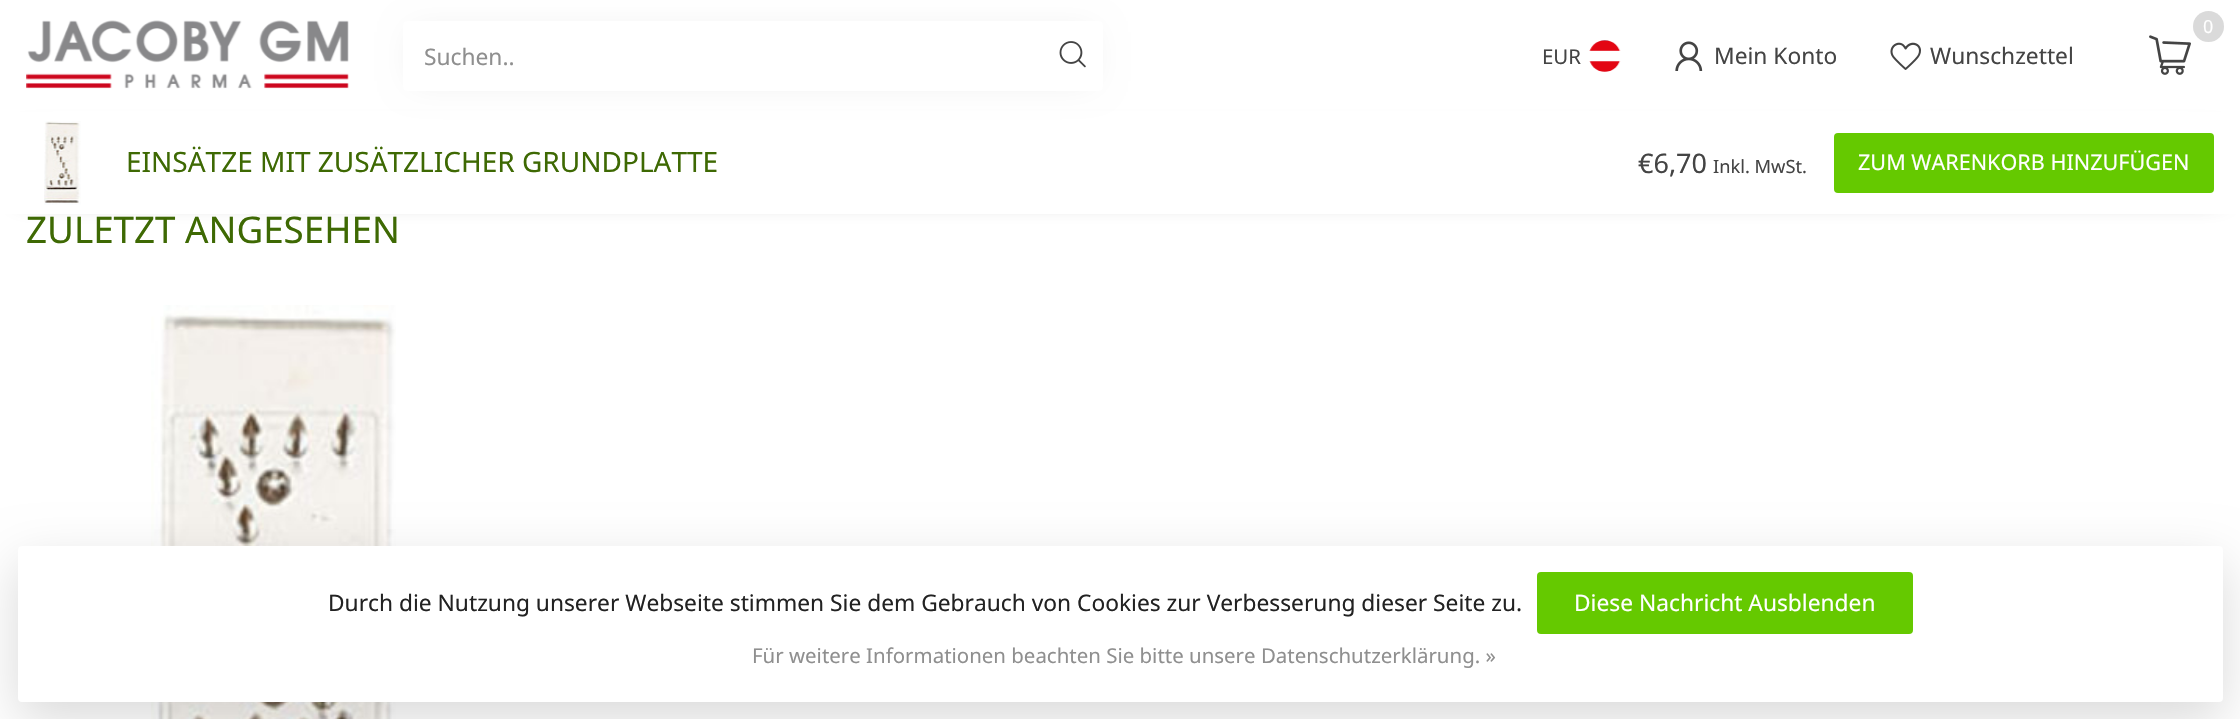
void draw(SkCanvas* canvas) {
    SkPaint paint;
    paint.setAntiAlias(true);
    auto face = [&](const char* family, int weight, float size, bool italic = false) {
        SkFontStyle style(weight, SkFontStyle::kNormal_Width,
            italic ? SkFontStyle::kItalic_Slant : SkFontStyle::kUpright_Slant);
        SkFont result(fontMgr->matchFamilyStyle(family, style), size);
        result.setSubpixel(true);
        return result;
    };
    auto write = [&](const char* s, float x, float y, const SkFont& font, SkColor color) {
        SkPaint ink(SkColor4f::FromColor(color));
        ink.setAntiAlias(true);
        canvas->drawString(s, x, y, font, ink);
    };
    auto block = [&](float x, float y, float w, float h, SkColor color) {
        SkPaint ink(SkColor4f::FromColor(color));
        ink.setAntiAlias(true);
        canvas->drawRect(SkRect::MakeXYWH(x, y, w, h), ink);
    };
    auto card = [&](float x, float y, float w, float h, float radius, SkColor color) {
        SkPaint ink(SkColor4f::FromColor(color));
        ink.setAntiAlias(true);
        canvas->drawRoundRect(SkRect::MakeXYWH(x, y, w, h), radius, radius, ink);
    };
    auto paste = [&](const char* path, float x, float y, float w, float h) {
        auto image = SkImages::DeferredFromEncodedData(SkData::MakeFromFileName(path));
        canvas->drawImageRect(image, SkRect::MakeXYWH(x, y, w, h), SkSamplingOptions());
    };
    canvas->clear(SK_ColorWHITE);
    paint.setColor(SkColorSetRGB(68, 68, 68));
    paint.setMaskFilter(SkMaskFilter::MakeBlur(kNormal_SkBlurStyle, 13));
    canvas->drawRect(SkRect::MakeXYWH(25, 140, 2191, 53), paint);
    paint.setMaskFilter(nullptr);
    block(53, 111, 2135, 1, SK_ColorWHITE);
    paste("pic1.png", 26, 20, 323, 69);
    block(0, 112, 2240, 102, SK_ColorWHITE);
    paint.setColor(SkColorSetARGB(20, 0, 0, 0));
    paint.setMaskFilter(SkMaskFilter::MakeBlur(kNormal_SkBlurStyle, 16));
    canvas->drawRect(SkRect::MakeXYWH(413, 32, 679, 49), paint);
    paint.setMaskFilter(nullptr);
    card(403, 21, 700, 70, 4, SK_ColorWHITE);
    auto kFont1 = face("Noto Sans", 400, 22.75f);
    write("Suchen..", 424, 65, kFont1, SkColorSetRGB(143, 143, 143));
    paste("pic2.png", 1059, 41, 27, 27);
    paint.setColor(SkColorSetRGB(218, 218, 218));
    canvas->drawCircle(2208.5f, 26.5f, 15.5f, paint);
    auto kFont2 = face("Noto Sans", 400, 18);
    write("0", 2203, 33, kFont2, SK_ColorWHITE);
    paste("pic3.png", 2149, 35, 42, 40);
    auto kFont3 = face("Noto Sans", 400, 20.45f);
    write("EUR", 1542, 64, kFont3, SkColorSetRGB(68, 68, 68));
    paste("pic4.png", 1589, 40, 32, 32);
    paste("pic5.png", 1675, 41, 28, 30);
    write("Mein Konto", 1714, 64, kFont1, SkColorSetRGB(68, 68, 68));
    paste("pic6.png", 1890, 42, 31, 28);
    write("Wunschzettel", 1930, 64, kFont1, SkColorSetRGB(68, 68, 68));
    paste("pic7.png", 44, 121, 37, 84);
    auto kFont4 = face("Noto Sans", 400, 28);
    write("EINSÄTZE MIT ZUSÄTZLICHER GRUNDPLATTE", 126, 172, kFont4, SkColorSetRGB(62, 105, 3));
    auto kFont5 = face("Noto Sans", 400, 27);
    write("€6,70", 1638, 173, kFont5, SkColorSetRGB(68, 68, 68));
    auto kFont6 = face("Noto Sans", 400, 18.25f);
    write("Inkl. MwSt.", 1713, 173, kFont6, SkColorSetRGB(68, 68, 68));
    card(1834, 133, 380, 60, 4, SkColorSetRGB(101, 201, 0));
    auto kFont7 = face("Noto Sans", 400, 21.6f);
    write("ZUM WARENKORB HINZUFÜGEN", 1858, 170, kFont7, SK_ColorWHITE);
    auto kFont8 = face("Noto Sans", 400, 36.75f);
    write("ZULETZT ANGESEHEN", 26, 243, kFont8, SkColorSetRGB(62, 105, 3));
    paste("pic8.png", 151, 305, 245, 414);
    paint.setColor(SkColorSetARGB(38, 0, 0, 0));
    paint.setMaskFilter(SkMaskFilter::MakeBlur(kNormal_SkBlurStyle, 26));
    canvas->drawRoundRect(SkRect::MakeXYWH(18, 564, 2205, 155), 4, 4, paint);
    paint.setMaskFilter(nullptr);
    card(18, 546, 2205, 156, 4, SK_ColorWHITE);
    write("Durch die Nutzung unserer Webseite stimmen Sie dem Gebrauch von Cookies zur Verbesserung dieser Seite zu.", 328, 611, kFont1, SkColorSetRGB(34, 34, 34));
    card(1537, 572, 376, 62, 4, SkColorSetRGB(101, 201, 0));
    write("Diese Nachricht Ausblenden", 1574, 611, kFont1, SK_ColorWHITE);
    write("Für weitere Informationen beachten Sie bitte unsere Datenschutzerklärung. »", 752, 663, kFont3, SkColorSetRGB(143, 143, 143));
}
